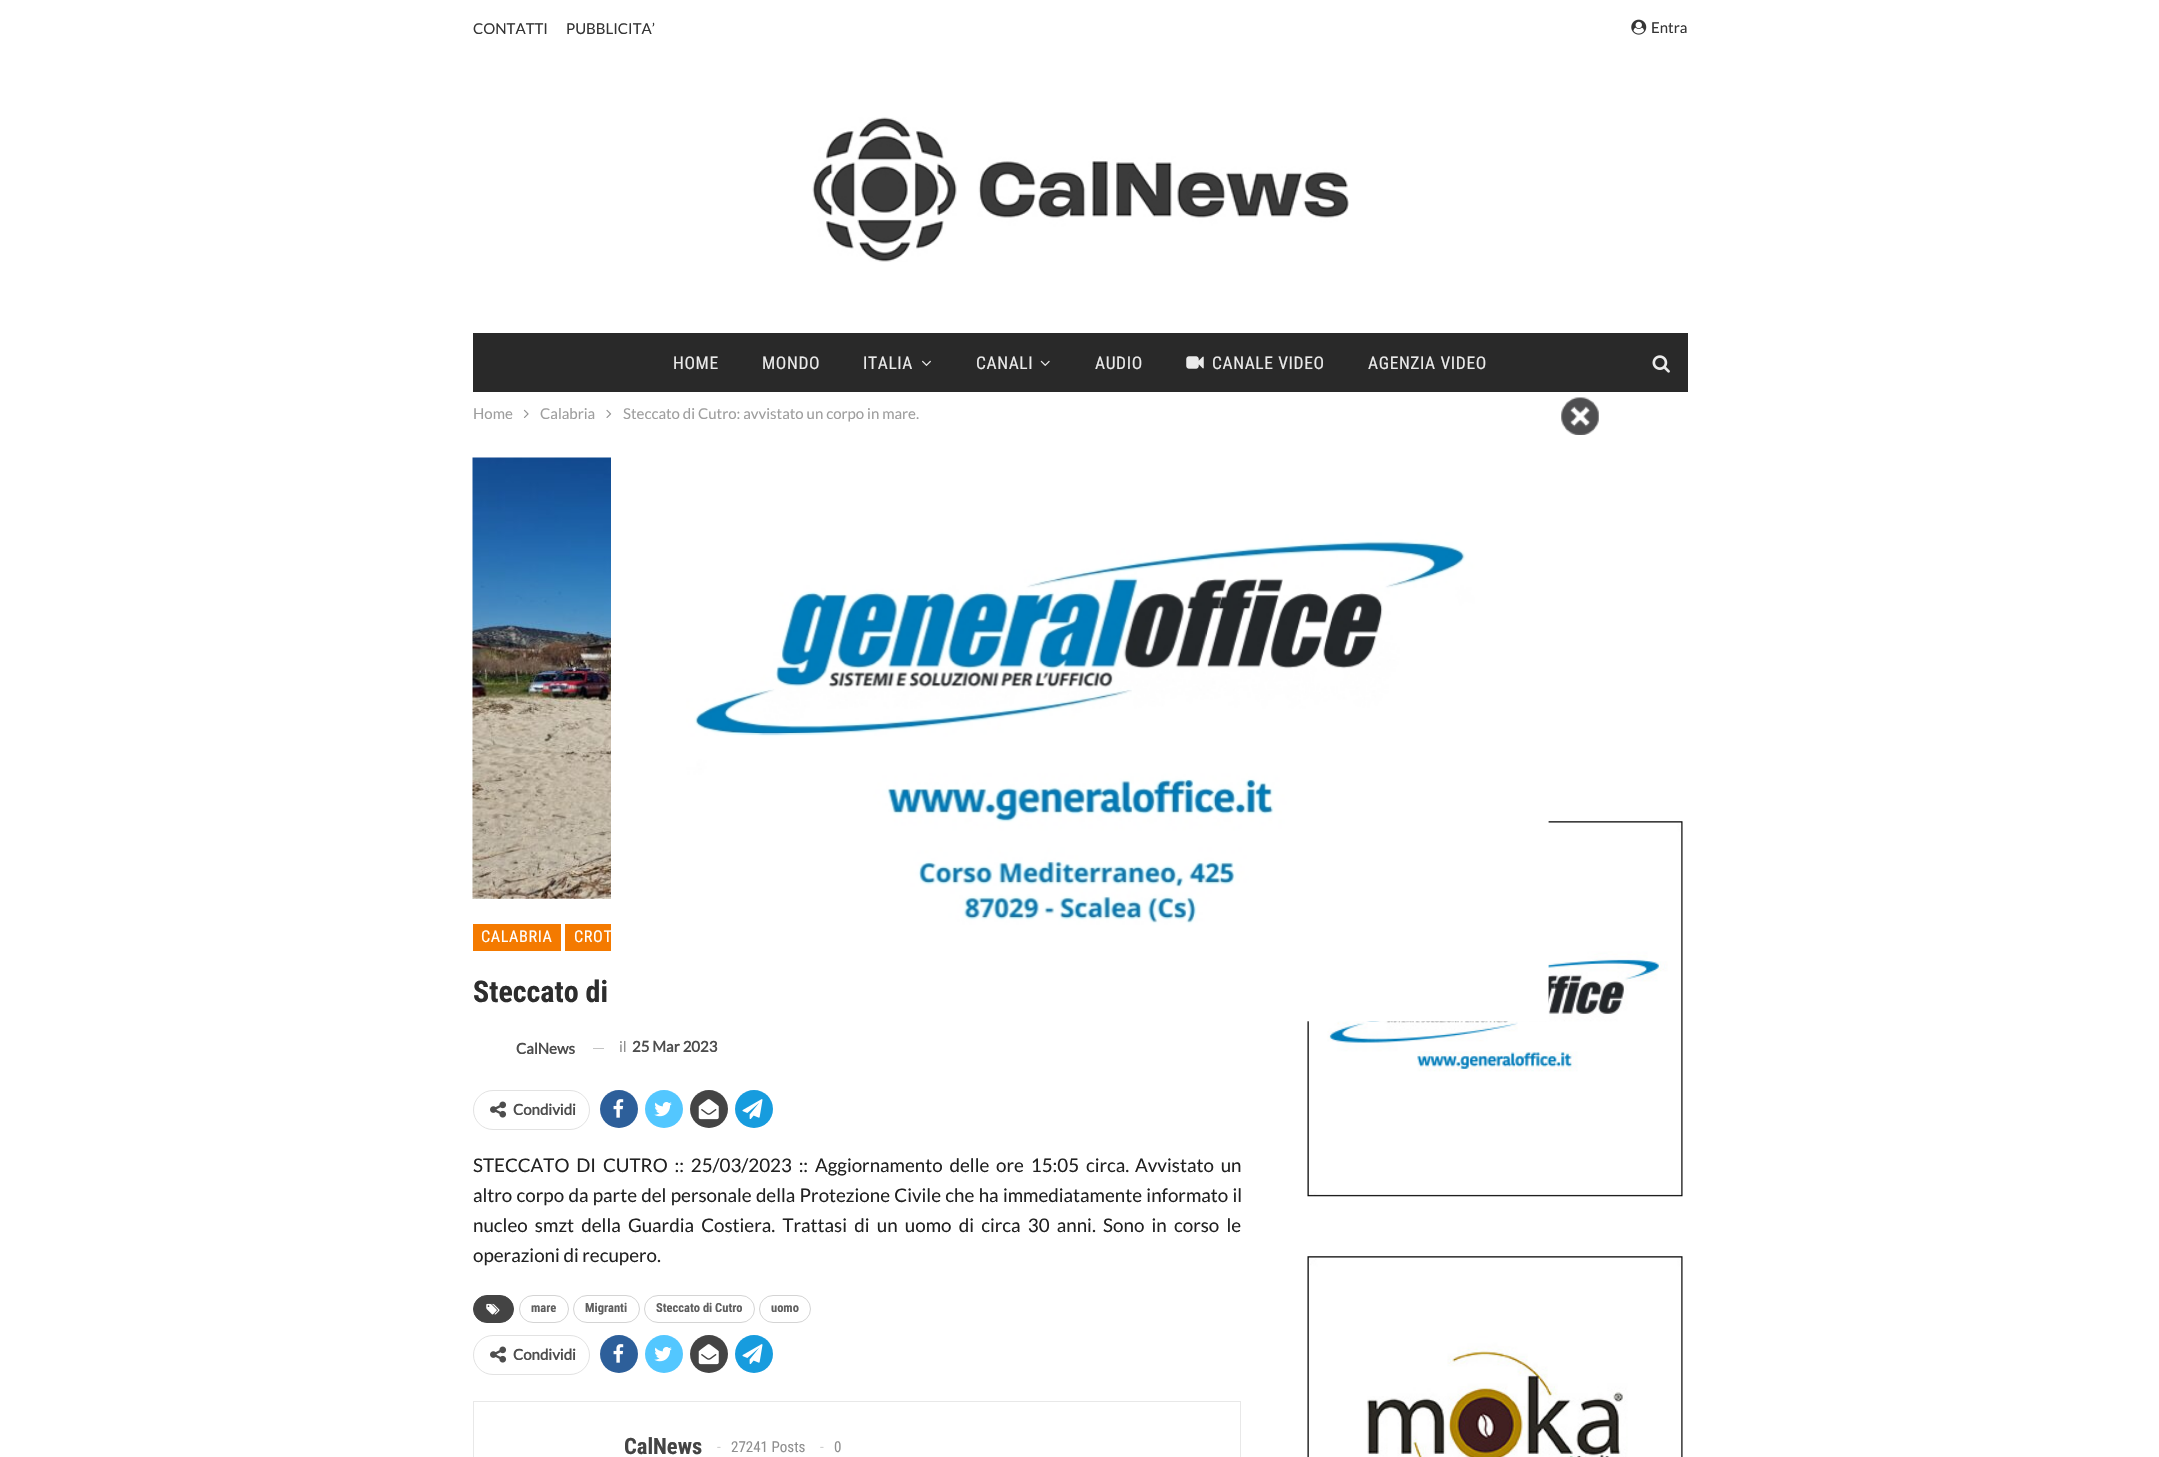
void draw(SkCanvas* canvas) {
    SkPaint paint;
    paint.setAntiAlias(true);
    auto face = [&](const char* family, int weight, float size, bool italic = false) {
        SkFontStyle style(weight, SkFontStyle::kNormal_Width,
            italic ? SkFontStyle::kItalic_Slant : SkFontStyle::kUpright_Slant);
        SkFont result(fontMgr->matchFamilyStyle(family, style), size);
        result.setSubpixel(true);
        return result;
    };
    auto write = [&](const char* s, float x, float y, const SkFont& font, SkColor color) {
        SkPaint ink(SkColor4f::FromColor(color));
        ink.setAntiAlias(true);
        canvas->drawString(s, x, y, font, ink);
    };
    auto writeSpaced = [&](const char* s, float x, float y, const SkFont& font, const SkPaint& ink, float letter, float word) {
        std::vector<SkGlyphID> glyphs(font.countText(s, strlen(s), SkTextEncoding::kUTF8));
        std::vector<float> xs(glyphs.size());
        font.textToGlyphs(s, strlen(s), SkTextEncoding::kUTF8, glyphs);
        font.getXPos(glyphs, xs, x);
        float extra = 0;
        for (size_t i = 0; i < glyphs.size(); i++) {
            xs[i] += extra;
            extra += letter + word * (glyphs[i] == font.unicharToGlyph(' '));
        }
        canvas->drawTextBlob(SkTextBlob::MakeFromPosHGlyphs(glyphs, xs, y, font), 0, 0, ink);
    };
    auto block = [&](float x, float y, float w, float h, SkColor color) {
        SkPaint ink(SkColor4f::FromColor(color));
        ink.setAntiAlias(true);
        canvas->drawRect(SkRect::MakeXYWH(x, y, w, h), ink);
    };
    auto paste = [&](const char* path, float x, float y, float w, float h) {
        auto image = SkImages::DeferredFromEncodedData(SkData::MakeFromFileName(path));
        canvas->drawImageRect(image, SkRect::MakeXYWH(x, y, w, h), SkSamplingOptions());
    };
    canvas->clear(SK_ColorWHITE);
    auto kFont1 = face("Lato", 400, 15);
    write("CONTATTI", 473, 34, kFont1, SkColorSetRGB(53, 53, 53));
    write("PUBBLICITA’", 566, 34, kFont1, SkColorSetRGB(53, 53, 53));
    paste("pic1.png", 1631, 19, 16, 16);
    write("Entra", 1651, 33, kFont1, SkColorSetRGB(53, 53, 53));
    paste("pic2.png", 812, 117, 537, 145);
    block(473, 333, 1215, 59, SkColorSetRGB(41, 41, 41));
    auto kFont2 = face("Roboto Condensed", 400, 17.5f);
    paint.setColor(SkColorSetRGB(234, 234, 234));
    writeSpaced("HOME", 673, 369, kFont2, paint, 0.6f, 0);
    writeSpaced("MONDO", 762, 369, kFont2, paint, 0.6f, 0);
    writeSpaced("ITALIA", 863, 369, kFont2, paint, 0.6f, 0);
    paste("pic3.png", 922, 360, 9, 6);
    writeSpaced("CANALI", 976, 369, kFont2, paint, 0.6f, 0);
    paste("pic4.png", 1040, 360, 10, 6);
    writeSpaced("AUDIO", 1095, 369, kFont2, paint, 0.6f, 0);
    paste("pic5.png", 1186, 356, 18, 13);
    writeSpaced("CANALE VIDEO", 1212, 369, kFont2, paint, 0.6f, 0);
    writeSpaced("AGENZIA VIDEO", 1368, 369, kFont2, paint, 0.6f, 0);
    paste("pic6.png", 1652, 355, 18, 18);
    write("Home", 473, 419, kFont1, SkColorSetRGB(158, 158, 158));
    paste("pic7.png", 523, 409, 6, 9);
    write("Calabria", 540, 419, kFont1, SkColorSetRGB(158, 158, 158));
    paste("pic8.png", 606, 409, 6, 9);
    write("Steccato di Cutro: avvistato un corpo in mare.", 623, 419, kFont1, SkColorSetRGB(158, 158, 158));
    paste("pic9.png", 472, 457, 139, 442);
    block(473, 924, 88, 27, SkColorSetRGB(244, 122, 0));
    auto kFont3 = face("Roboto Condensed", 400, 16.25f);
    paint.setColor(SK_ColorWHITE);
    writeSpaced("CALABRIA", 481, 942, kFont3, paint, 0.6f, 0);
    block(565, 924, 46, 27, SkColorSetRGB(244, 122, 0));
    writeSpaced("CROT", 574, 942, kFont3, paint, 0.6f, 0);
    auto kFont4 = face("Roboto Condensed", 700, 30);
    write("Steccato di", 473, 1002, kFont4, SkColorSetRGB(45, 45, 45));
    auto kFont5 = face("Lato", 700, 15);
    write("CalNews", 516, 1054, kFont5, SkColorSetRGB(77, 77, 77));
    block(593, 1048, 11, 1, SkColorSetRGB(196, 196, 196));
    write("il", 619, 1052, kFont1, SkColorSetRGB(143, 143, 143));
    write("25 Mar 2023", 632, 1052, kFont5, SkColorSetRGB(77, 77, 77));
    paint.setStyle(SkPaint::kStroke_Style);
    paint.setStrokeWidth(1);
    paint.setColor(SkColorSetRGB(226, 226, 226));
    canvas->drawRoundRect(SkRect::MakeXYWH(473.5f, 1090.5f, 116, 39), 19.5f, 19.5f, paint);
    paste("pic10.png", 490, 1101, 17, 17);
    write("Condividi", 513, 1115, kFont5, SkColorSetRGB(77, 77, 77));
    paint.setStyle(SkPaint::kFill_Style);
    paint.setColor(SkColorSetRGB(45, 95, 154));
    canvas->drawCircle(619, 1109, 19, paint);
    paste("pic11.png", 613, 1099, 11, 19);
    paint.setColor(SkColorSetRGB(83, 199, 255));
    canvas->drawCircle(664, 1109, 19, paint);
    paste("pic12.png", 654, 1102, 18, 15);
    paint.setColor(SkColorSetRGB(68, 68, 68));
    canvas->drawCircle(709, 1109, 19, paint);
    paste("pic13.png", 698, 1099, 21, 21);
    paint.setColor(SkColorSetRGB(23, 156, 222));
    canvas->drawCircle(754, 1109, 19, paint);
    paste("pic14.png", 742, 1099, 21, 21);
    auto kFont6 = face("Lato", 400, 18.75f);
    paint.setColor(SkColorSetRGB(34, 34, 34));
    writeSpaced("STECCATO DI CUTRO :: 25/03/2023 :: Aggiornamento delle ore 15:05 circa.", 473, 1172, kFont6, paint, 0, 3.25f);
    writeSpaced("Avvistato un", 1135, 1172, kFont6, paint, 0, 3.25f);
    writeSpaced("altro corpo da parte del personale della Protezione Civile che ha immediatamente informato il", 473, 1202, kFont6, paint, 0, 0.7f);
    writeSpaced("nucleo smzt della Guardia Costiera. Trattasi di un uomo di circa 30 anni. Sono in corso le", 473, 1232, kFont6, paint, 0, 3.6f);
    write("operazioni di recupero.", 473, 1262, kFont6, SkColorSetRGB(34, 34, 34));
    paint.setColor(SkColorSetRGB(68, 68, 68));
    canvas->drawRoundRect(SkRect::MakeXYWH(473.5f, 1295.5f, 40, 27), 13.5f, 13.5f, paint);
    paint.setStyle(SkPaint::kStroke_Style);
    canvas->drawRoundRect(SkRect::MakeXYWH(473.5f, 1295.5f, 40, 27), 13.5f, 13.5f, paint);
    paste("pic15.png", 486, 1303, 14, 12);
    paint.setColor(SkColorSetRGB(212, 212, 212));
    canvas->drawRoundRect(SkRect::MakeXYWH(519.5f, 1295.5f, 49, 27), 13.5f, 13.5f, paint);
    auto kFont7 = face("Roboto Condensed", 700, 12.5f);
    write("mare", 531, 1312, kFont7, SkColorSetRGB(95, 95, 95));
    canvas->drawRoundRect(SkRect::MakeXYWH(573.5f, 1295.5f, 66, 27), 13.5f, 13.5f, paint);
    write("Migranti", 585, 1312, kFont7, SkColorSetRGB(95, 95, 95));
    canvas->drawRoundRect(SkRect::MakeXYWH(644.5f, 1295.5f, 110, 27), 13.5f, 13.5f, paint);
    write("Steccato di Cutro", 656, 1312, kFont7, SkColorSetRGB(95, 95, 95));
    canvas->drawRoundRect(SkRect::MakeXYWH(759.5f, 1295.5f, 51, 27), 13.5f, 13.5f, paint);
    write("uomo", 771, 1312, kFont7, SkColorSetRGB(95, 95, 95));
    paint.setColor(SkColorSetRGB(226, 226, 226));
    canvas->drawRoundRect(SkRect::MakeXYWH(473.5f, 1335.5f, 116, 39), 19.5f, 19.5f, paint);
    paste("pic10.png", 490, 1346, 17, 17);
    write("Condividi", 513, 1360, kFont5, SkColorSetRGB(77, 77, 77));
    paint.setStyle(SkPaint::kFill_Style);
    paint.setColor(SkColorSetRGB(45, 95, 154));
    canvas->drawCircle(619, 1354, 19, paint);
    paste("pic11.png", 613, 1344, 11, 19);
    paint.setColor(SkColorSetRGB(83, 199, 255));
    canvas->drawCircle(664, 1354, 19, paint);
    paste("pic12.png", 654, 1347, 18, 15);
    paint.setColor(SkColorSetRGB(68, 68, 68));
    canvas->drawCircle(709, 1354, 19, paint);
    paste("pic13.png", 698, 1344, 21, 21);
    paint.setColor(SkColorSetRGB(23, 156, 222));
    canvas->drawCircle(754, 1354, 19, paint);
    paste("pic14.png", 742, 1344, 21, 21);
    paint.setStyle(SkPaint::kStroke_Style);
    paint.setColor(SkColorSetRGB(232, 232, 232));
    canvas->drawRect(SkRect::MakeXYWH(473.5f, 1401.5f, 767, 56), paint);
    auto kFont8 = face("Roboto Condensed", 700, 22.5f);
    write("CalNews", 624, 1454, kFont8, SkColorSetRGB(68, 68, 68));
    auto kFont9 = face("Roboto Condensed", 400, 15);
    write("-", 717, 1452, kFont9, SkColorSetRGB(208, 208, 208));
    write("27241 Posts", 731, 1452, kFont9, SkColorSetRGB(143, 143, 143));
    write("-", 820, 1452, kFont9, SkColorSetRGB(208, 208, 208));
    write("0", 834, 1452, kFont9, SkColorSetRGB(143, 143, 143));
    paste("pic16.png", 1307, 821, 376, 376);
    paste("pic17.png", 1307, 1256, 376, 201);
    paste("pic18.png", 1561, 397, 38, 38);
    paste("pic19.png", 611, 457, 938, 566);
}
